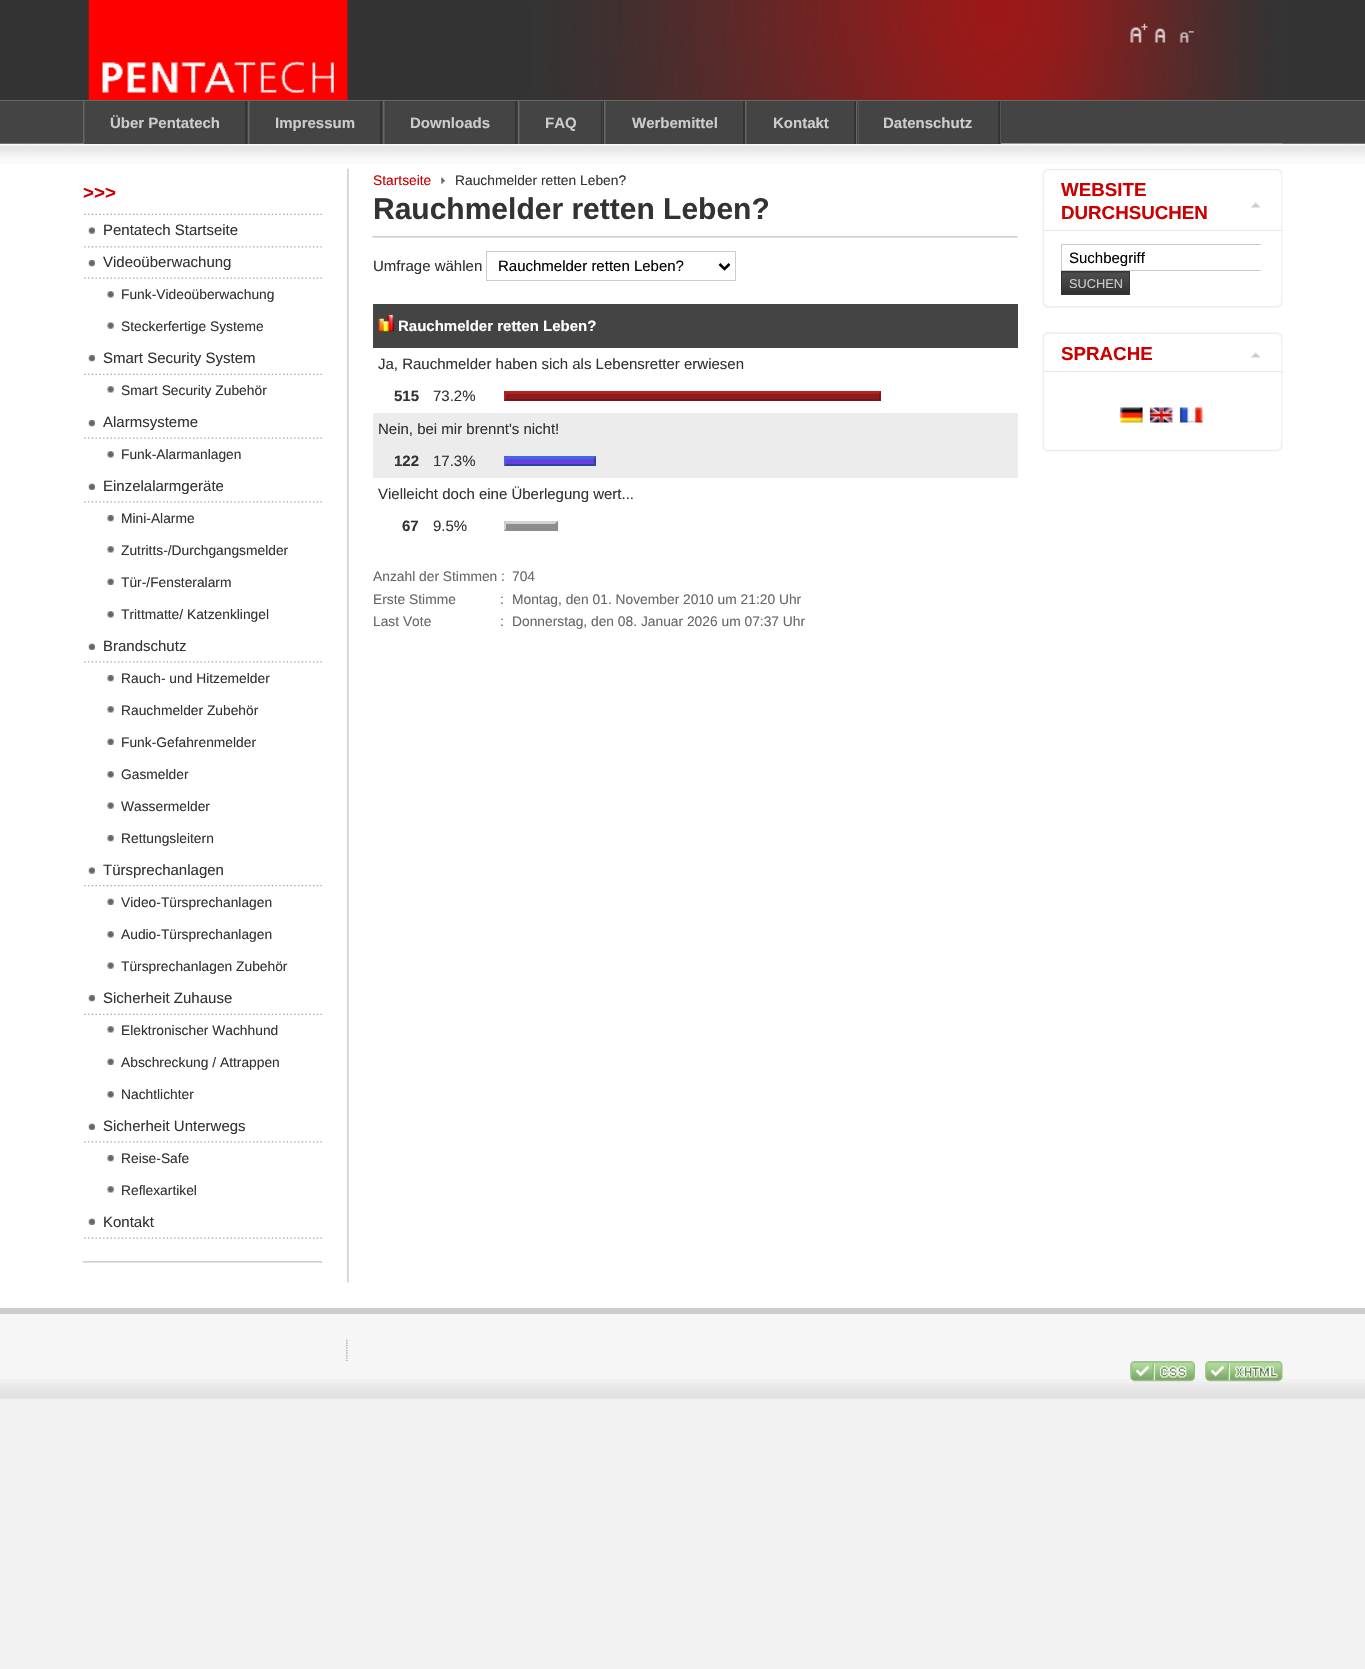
void draw(SkCanvas* canvas) {
    SkPaint paint;
    paint.setAntiAlias(true);
    auto face = [&](const char* family, int weight, float size, bool italic = false) {
        SkFontStyle style(weight, SkFontStyle::kNormal_Width,
            italic ? SkFontStyle::kItalic_Slant : SkFontStyle::kUpright_Slant);
        SkFont result(fontMgr->matchFamilyStyle(family, style), size);
        result.setSubpixel(true);
        return result;
    };
    auto write = [&](const char* s, float x, float y, const SkFont& font, SkColor color) {
        SkPaint ink(SkColor4f::FromColor(color));
        ink.setAntiAlias(true);
        canvas->drawString(s, x, y, font, ink);
    };
    auto block = [&](float x, float y, float w, float h, SkColor color) {
        SkPaint ink(SkColor4f::FromColor(color));
        ink.setAntiAlias(true);
        canvas->drawRect(SkRect::MakeXYWH(x, y, w, h), ink);
    };
    auto paste = [&](const char* path, float x, float y, float w, float h) {
        auto image = SkImages::DeferredFromEncodedData(SkData::MakeFromFileName(path));
        canvas->drawImageRect(image, SkRect::MakeXYWH(x, y, w, h), SkSamplingOptions());
    };
    canvas->clear(SkColorSetRGB(242, 242, 242));
    block(0, 164, 1365, 1144, SK_ColorWHITE);
    block(0, 0, 1365, 100, SkColorSetRGB(51, 51, 51));
    block(538, 0, 741, 100, SkColorSetRGB(254, 0, 0));
    paste("pic1.png", 88, 0, 260, 100);
    paste("pic2.png", 532, 0, 751, 100);
    paste("pic3.png", 1130, 23, 18, 20);
    paste("pic4.png", 1154, 28, 12, 15);
    paste("pic5.png", 1179, 31, 15, 12);
    block(0, 101, 1365, 43, SkColorSetRGB(68, 68, 68));
    block(0, 100, 1365, 1, SkColorSetRGB(102, 102, 102));
    paste("pic6.png", 0, 143, 1365, 21);
    paste("pic7.png", 82, 143, 1201, 1);
    block(85, 143, 913, 1, SkColorSetRGB(68, 68, 68));
    block(1000, 101, 1, 43, SkColorSetRGB(85, 85, 85));
    block(245, 101, 2, 43, SkColorSetRGB(51, 51, 51));
    block(83, 101, 1, 43, SkColorSetRGB(102, 102, 102));
    block(84, 101, 1, 43, SkColorSetRGB(85, 85, 85));
    auto kFont1 = face("Liberation Sans", 700, 15);
    write("Über Pentatech", 110, 128, kFont1, SkColorSetRGB(204, 204, 204));
    block(380, 101, 2, 43, SkColorSetRGB(51, 51, 51));
    block(248, 101, 1, 43, SkColorSetRGB(102, 102, 102));
    block(249, 101, 1, 43, SkColorSetRGB(85, 85, 85));
    write("Impressum", 275, 128, kFont1, SkColorSetRGB(204, 204, 204));
    block(515, 101, 2, 43, SkColorSetRGB(51, 51, 51));
    block(383, 101, 1, 43, SkColorSetRGB(102, 102, 102));
    block(384, 101, 1, 43, SkColorSetRGB(85, 85, 85));
    write("Downloads", 410, 128, kFont1, SkColorSetRGB(204, 204, 204));
    block(603, 101, 1, 43, SkColorSetRGB(51, 51, 51));
    block(518, 101, 1, 43, SkColorSetRGB(102, 102, 102));
    block(601, 101, 1, 43, SkColorSetRGB(51, 51, 51));
    block(519, 101, 1, 43, SkColorSetRGB(85, 85, 85));
    write("FAQ", 545, 128, kFont1, SkColorSetRGB(204, 204, 204));
    block(743, 101, 2, 43, SkColorSetRGB(51, 51, 51));
    block(604, 101, 1, 43, SkColorSetRGB(102, 102, 102));
    block(605, 101, 1, 43, SkColorSetRGB(85, 85, 85));
    write("Werbemittel", 632, 128, kFont1, SkColorSetRGB(204, 204, 204));
    block(854, 101, 2, 43, SkColorSetRGB(51, 51, 51));
    block(745, 101, 1, 43, SkColorSetRGB(102, 102, 102));
    block(746, 101, 1, 43, SkColorSetRGB(85, 85, 85));
    write("Kontakt", 773, 128, kFont1, SkColorSetRGB(204, 204, 204));
    block(998, 101, 2, 43, SkColorSetRGB(51, 51, 51));
    block(856, 101, 1, 43, SkColorSetRGB(102, 102, 102));
    block(858, 101, 1, 43, SkColorSetRGB(85, 85, 85));
    write("Datenschutz", 883, 128, kFont1, SkColorSetRGB(204, 204, 204));
    paste("pic8.png", 347, 168, 2, 1115);
    paste("pic9.png", 82, 1261, 241, 2);
    auto kFont2 = face("Liberation Sans", 700, 18.75f);
    write(">>>", 83, 199, kFont2, SkColorSetRGB(204, 0, 0));
    paste("pic10.png", 84, 213, 238, 2);
    paste("pic11.png", 84, 246, 238, 2);
    paste("pic12.png", 88, 227, 7, 7);
    auto kFont3 = face("Liberation Sans", 400, 15);
    write("Pentatech Startseite", 103, 235, kFont3, SkColorSetRGB(51, 51, 51));
    paste("pic13.png", 84, 277, 238, 2);
    paste("pic14.png", 88, 260, 7, 7);
    write("Videoüberwachung", 103, 267, kFont3, SkColorSetRGB(51, 51, 51));
    paste("pic15.png", 107, 291, 7, 7);
    auto kFont4 = face("Liberation Sans", 400, 13.8f);
    write("Funk-Videoüberwachung", 121, 299, kFont4, SkColorSetRGB(51, 51, 51));
    paste("pic16.png", 107, 322, 7, 7);
    write("Steckerfertige Systeme", 121, 331, kFont4, SkColorSetRGB(51, 51, 51));
    paste("pic10.png", 84, 373, 238, 2);
    paste("pic14.png", 88, 355, 7, 7);
    write("Smart Security System", 103, 363, kFont3, SkColorSetRGB(51, 51, 51));
    paste("pic15.png", 107, 386, 7, 7);
    write("Smart Security Zubehör", 121, 395, kFont4, SkColorSetRGB(51, 51, 51));
    paste("pic13.png", 84, 437, 238, 2);
    paste("pic14.png", 88, 420, 7, 7);
    write("Alarmsysteme", 103, 427, kFont3, SkColorSetRGB(51, 51, 51));
    paste("pic15.png", 107, 451, 7, 7);
    write("Funk-Alarmanlagen", 121, 459, kFont4, SkColorSetRGB(51, 51, 51));
    paste("pic11.png", 84, 501, 238, 2);
    paste("pic17.png", 88, 483, 7, 7);
    write("Einzelalarmgeräte", 103, 491, kFont3, SkColorSetRGB(51, 51, 51));
    paste("pic18.png", 107, 515, 7, 7);
    write("Mini-Alarme", 121, 523, kFont4, SkColorSetRGB(51, 51, 51));
    paste("pic15.png", 107, 546, 7, 7);
    write("Zutritts-/Durchgangsmelder", 121, 555, kFont4, SkColorSetRGB(51, 51, 51));
    paste("pic19.png", 107, 578, 7, 7);
    write("Tür-/Fensteralarm", 121, 587, kFont4, SkColorSetRGB(51, 51, 51));
    paste("pic15.png", 107, 611, 7, 7);
    write("Trittmatte/ Katzenklingel", 121, 619, kFont4, SkColorSetRGB(51, 51, 51));
    paste("pic11.png", 84, 661, 238, 2);
    paste("pic17.png", 88, 643, 7, 7);
    write("Brandschutz", 103, 651, kFont3, SkColorSetRGB(51, 51, 51));
    paste("pic18.png", 107, 675, 7, 7);
    write("Rauch- und Hitzemelder", 121, 683, kFont4, SkColorSetRGB(51, 51, 51));
    paste("pic15.png", 107, 706, 7, 7);
    write("Rauchmelder Zubehör", 121, 715, kFont4, SkColorSetRGB(51, 51, 51));
    paste("pic19.png", 107, 738, 7, 7);
    write("Funk-Gefahrenmelder", 121, 747, kFont4, SkColorSetRGB(51, 51, 51));
    paste("pic15.png", 107, 771, 7, 7);
    write("Gasmelder", 121, 779, kFont4, SkColorSetRGB(51, 51, 51));
    paste("pic16.png", 107, 802, 7, 7);
    write("Wassermelder", 121, 811, kFont4, SkColorSetRGB(51, 51, 51));
    paste("pic18.png", 107, 835, 7, 7);
    write("Rettungsleitern", 121, 843, kFont4, SkColorSetRGB(51, 51, 51));
    paste("pic20.png", 84, 885, 238, 2);
    paste("pic12.png", 88, 867, 7, 7);
    write("Türsprechanlagen", 103, 875, kFont3, SkColorSetRGB(51, 51, 51));
    paste("pic19.png", 107, 898, 7, 7);
    write("Video-Türsprechanlagen", 121, 907, kFont4, SkColorSetRGB(51, 51, 51));
    paste("pic15.png", 107, 931, 7, 7);
    write("Audio-Türsprechanlagen", 121, 939, kFont4, SkColorSetRGB(51, 51, 51));
    paste("pic16.png", 107, 962, 7, 7);
    write("Türsprechanlagen Zubehör", 121, 971, kFont4, SkColorSetRGB(51, 51, 51));
    paste("pic10.png", 84, 1013, 238, 2);
    paste("pic14.png", 88, 995, 7, 7);
    write("Sicherheit Zuhause", 103, 1003, kFont3, SkColorSetRGB(51, 51, 51));
    paste("pic15.png", 107, 1026, 7, 7);
    write("Elektronischer Wachhund", 121, 1035, kFont4, SkColorSetRGB(51, 51, 51));
    paste("pic19.png", 107, 1058, 7, 7);
    write("Abschreckung / Attrappen", 121, 1067, kFont4, SkColorSetRGB(51, 51, 51));
    paste("pic15.png", 107, 1091, 7, 7);
    write("Nachtlichter", 121, 1099, kFont4, SkColorSetRGB(51, 51, 51));
    paste("pic11.png", 84, 1141, 238, 2);
    paste("pic17.png", 88, 1123, 7, 7);
    write("Sicherheit Unterwegs", 103, 1131, kFont3, SkColorSetRGB(51, 51, 51));
    paste("pic18.png", 107, 1155, 7, 7);
    write("Reise-Safe", 121, 1163, kFont4, SkColorSetRGB(51, 51, 51));
    paste("pic15.png", 107, 1186, 7, 7);
    write("Reflexartikel", 121, 1195, kFont4, SkColorSetRGB(51, 51, 51));
    paste("pic13.png", 84, 1237, 238, 2);
    paste("pic17.png", 88, 1218, 7, 7);
    write("Kontakt", 103, 1227, kFont3, SkColorSetRGB(51, 51, 51));
    write("Startseite", 373, 185, kFont4, SkColorSetRGB(204, 0, 0));
    paste("pic21.png", 441, 177, 4, 7);
    write("Rauchmelder retten Leben?", 455, 185, kFont4, SkColorSetRGB(51, 51, 51));
    paste("pic22.png", 372, 236, 646, 2);
    auto kFont5 = face("Liberation Sans", 700, 30);
    write("Rauchmelder retten Leben?", 373, 219, kFont5, SkColorSetRGB(51, 51, 51));
    write("Umfrage wählen", 373, 271, kFont3, SkColorSetRGB(51, 51, 51));
    paint.setStyle(SkPaint::kStroke_Style);
    paint.setStrokeWidth(1);
    paint.setColor(SkColorSetRGB(204, 204, 204));
    canvas->drawRect(SkRect::MakeXYWH(486.5f, 251.5f, 249, 29), paint);
    paint.setStrokeWidth(2.5f);
    paint.setColor(SK_ColorBLACK);
    canvas->drawPath(SkPathBuilder().moveTo(719.5f, 264).lineTo(724.5f, 269).lineTo(729.5f, 264).detach(), paint);
    write("Rauchmelder retten Leben?", 498, 271, kFont3, SK_ColorBLACK);
    block(373, 304, 645, 44, SkColorSetRGB(68, 68, 68));
    paste("pic23.png", 378, 314, 16, 18);
    write("Rauchmelder retten Leben?", 398, 331, kFont1, SK_ColorWHITE);
    write("Ja, Rauchmelder haben sich als Lebensretter erwiesen", 378, 369, kFont3, SkColorSetRGB(51, 51, 51));
    write("515", 394, 401, kFont1, SkColorSetRGB(51, 51, 51));
    write("73.2%", 433, 401, kFont3, SkColorSetRGB(51, 51, 51));
    block(504, 391, 377, 10, SkColorSetRGB(141, 27, 27));
    paint.setStyle(SkPaint::kFill_Style);
    paint.setColor(SkColorSetRGB(178, 34, 34));
    canvas->drawPath(SkPathBuilder().moveTo(504, 391).lineTo(881, 391).lineTo(879, 394).lineTo(506, 394).close().detach(), paint);
    paint.setColor(SkColorSetRGB(119, 23, 23));
    canvas->drawPath(SkPathBuilder().moveTo(881, 391).lineTo(881, 401).lineTo(879, 399).lineTo(879, 394).close().detach(), paint);
    canvas->drawPath(SkPathBuilder().moveTo(881, 401).lineTo(504, 401).lineTo(506, 399).lineTo(879, 399).close().detach(), paint);
    paint.setColor(SkColorSetRGB(178, 34, 34));
    canvas->drawPath(SkPathBuilder().moveTo(504, 401).lineTo(504, 391).lineTo(506, 394).lineTo(506, 399).close().detach(), paint);
    block(373, 413, 645, 32, SkColorSetRGB(236, 236, 236));
    write("Nein, bei mir brennt's nicht!", 378, 434, kFont3, SkColorSetRGB(51, 51, 51));
    block(373, 445, 645, 33, SkColorSetRGB(236, 236, 236));
    write("122", 394, 466, kFont1, SkColorSetRGB(51, 51, 51));
    write("17.3%", 433, 466, kFont3, SkColorSetRGB(51, 51, 51));
    block(504, 456, 92, 10, SkColorSetRGB(103, 64, 225));
    paint.setColor(SkColorSetRGB(65, 105, 225));
    canvas->drawPath(SkPathBuilder().moveTo(504, 456).lineTo(596, 456).lineTo(594, 459).lineTo(506, 459).close().detach(), paint);
    paint.setColor(SkColorSetRGB(43, 70, 150));
    canvas->drawPath(SkPathBuilder().moveTo(596, 456).lineTo(596, 466).lineTo(594, 464).lineTo(594, 459).close().detach(), paint);
    canvas->drawPath(SkPathBuilder().moveTo(596, 466).lineTo(504, 466).lineTo(506, 464).lineTo(594, 464).close().detach(), paint);
    paint.setColor(SkColorSetRGB(65, 105, 225));
    canvas->drawPath(SkPathBuilder().moveTo(504, 466).lineTo(504, 456).lineTo(506, 459).lineTo(506, 464).close().detach(), paint);
    write("Vielleicht doch eine Überlegung wert...", 378, 499, kFont3, SkColorSetRGB(51, 51, 51));
    write("67", 402, 531, kFont1, SkColorSetRGB(51, 51, 51));
    write("9.5%", 433, 531, kFont3, SkColorSetRGB(51, 51, 51));
    block(504, 521, 54, 10, SkColorSetRGB(141, 141, 141));
    paint.setColor(SkColorSetRGB(210, 210, 210));
    canvas->drawPath(SkPathBuilder().moveTo(504, 521).lineTo(558, 521).lineTo(555, 524).lineTo(506, 524).close().detach(), paint);
    paint.setColor(SkColorSetRGB(140, 140, 140));
    canvas->drawPath(SkPathBuilder().moveTo(557.5f, 521).lineTo(557.5f, 531).lineTo(555, 529).lineTo(555, 524).close().detach(), paint);
    paint.setColor(SkColorSetRGB(210, 210, 210));
    canvas->drawPath(SkPathBuilder().moveTo(504, 531).lineTo(504, 521).lineTo(506, 524).lineTo(506, 529).close().detach(), paint);
    write("Anzahl der Stimmen :", 373, 581, kFont4, SkColorSetRGB(102, 102, 102));
    write("704", 512, 581, kFont4, SkColorSetRGB(102, 102, 102));
    write("Erste Stimme", 373, 604, kFont4, SkColorSetRGB(102, 102, 102));
    write(":", 500, 604, kFont4, SkColorSetRGB(102, 102, 102));
    write("Montag, den 01. November 2010 um 21:20 Uhr", 512, 604, kFont4, SkColorSetRGB(102, 102, 102));
    write("Last Vote", 373, 626, kFont4, SkColorSetRGB(102, 102, 102));
    write(":", 500, 626, kFont4, SkColorSetRGB(102, 102, 102));
    write("Donnerstag, den 08. Januar 2026 um 07:37 Uhr", 512, 626, kFont4, SkColorSetRGB(102, 102, 102));
    paste("pic24.png", 1042, 169, 241, 139);
    paste("pic25.png", 1042, 169, 11, 139);
    paste("pic26.png", 1043, 169, 239, 39);
    paste("pic27.png", 1043, 169, 4, 39);
    paste("pic28.png", 1251, 202, 9, 6);
    block(1043, 230, 240, 1, SkColorSetRGB(233, 233, 233));
    write("WEBSITE", 1061, 196, kFont2, SkColorSetRGB(204, 0, 0));
    write("DURCHSUCHEN", 1061, 219, kFont2, SkColorSetRGB(204, 0, 0));
    canvas->save();
    canvas->clipRect(SkRect::MakeXYWH(1061, 244, 200, 51));
    paint.setStyle(SkPaint::kStroke_Style);
    paint.setStrokeWidth(1);
    paint.setColor(SkColorSetRGB(204, 204, 204));
    canvas->drawRect(SkRect::MakeXYWH(1061.5f, 244.5f, 252, 26), paint);
    canvas->restore();
    write("Suchbegriff", 1069, 263, kFont3, SK_ColorBLACK);
    block(1062, 272, 67, 22, SkColorSetRGB(51, 51, 51));
    paste("pic29.png", 1062, 272, 67, 19);
    paint.setColor(SkColorSetRGB(51, 51, 51));
    canvas->drawRect(SkRect::MakeXYWH(1061.5f, 271.5f, 68, 23), paint);
    auto kFont6 = face("Liberation Sans", 400, 12.75f);
    write("SUCHEN", 1069, 288, kFont6, SkColorSetRGB(204, 204, 204));
    paste("pic30.png", 1042, 332, 241, 120);
    paste("pic31.png", 1042, 332, 6, 119);
    paste("pic32.png", 1043, 332, 239, 39);
    paste("pic33.png", 1043, 332, 10, 39);
    paste("pic28.png", 1251, 352, 9, 6);
    block(1043, 371, 240, 1, SkColorSetRGB(233, 233, 233));
    write("SPRACHE", 1061, 360, kFont2, SkColorSetRGB(204, 0, 0));
    paste("pic34.png", 1119, 407, 24, 16);
    paste("pic35.png", 1149, 407, 24, 16);
    paste("pic36.png", 1179, 407, 24, 16);
    block(0, 1314, 1365, 85, SkColorSetRGB(246, 246, 246));
    paste("pic37.png", 0, 1379, 1365, 20);
    block(0, 1308, 1365, 6, SkColorSetRGB(204, 204, 204));
    paste("pic38.png", 346, 1338, 2, 24);
    paste("pic39.png", 1130, 1361, 65, 21);
    paste("pic40.png", 1205, 1361, 78, 21);
}
